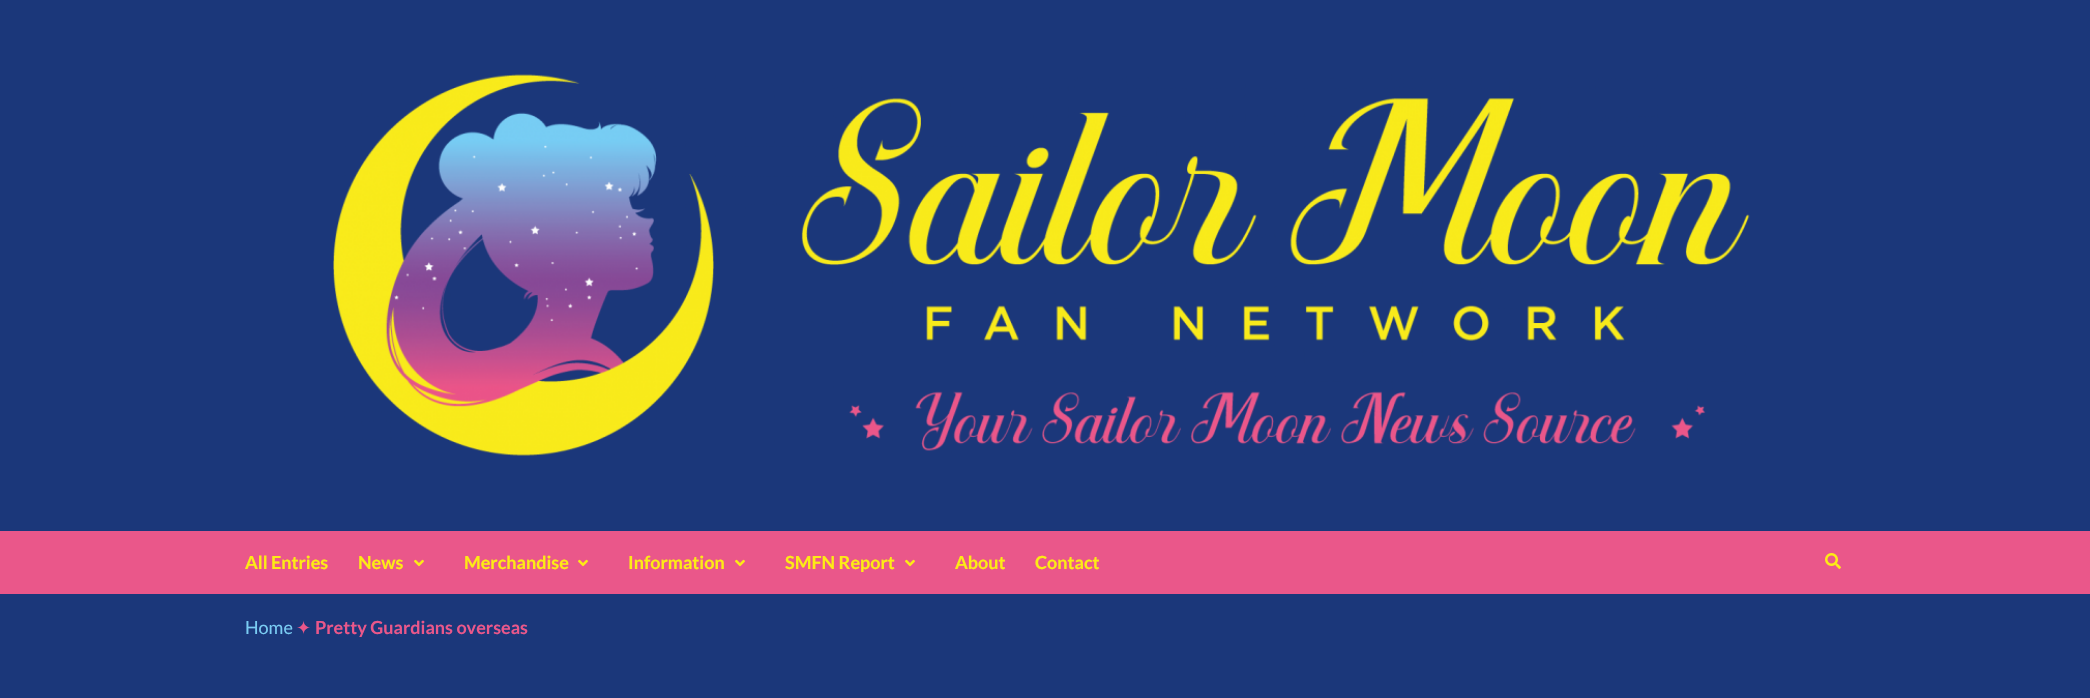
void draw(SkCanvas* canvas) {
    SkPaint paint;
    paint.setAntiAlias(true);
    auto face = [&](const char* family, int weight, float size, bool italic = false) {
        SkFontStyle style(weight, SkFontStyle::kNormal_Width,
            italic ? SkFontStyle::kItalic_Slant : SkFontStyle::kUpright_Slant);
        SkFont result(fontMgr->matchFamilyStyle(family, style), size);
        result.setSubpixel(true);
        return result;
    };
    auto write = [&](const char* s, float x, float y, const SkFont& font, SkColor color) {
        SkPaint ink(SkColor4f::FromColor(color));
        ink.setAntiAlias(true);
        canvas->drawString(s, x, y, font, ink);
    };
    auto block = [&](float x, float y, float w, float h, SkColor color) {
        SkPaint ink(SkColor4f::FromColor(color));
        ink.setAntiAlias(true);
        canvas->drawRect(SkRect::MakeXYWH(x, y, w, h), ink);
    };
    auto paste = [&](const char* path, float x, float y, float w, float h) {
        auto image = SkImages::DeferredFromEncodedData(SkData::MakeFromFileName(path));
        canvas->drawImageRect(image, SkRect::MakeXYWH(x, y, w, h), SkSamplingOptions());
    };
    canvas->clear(SkColorSetRGB(27, 55, 122));
    paste("pic1.png", 333, 74, 1417, 382);
    block(0, 531, 2090, 63, SkColorSetRGB(234, 87, 138));
    auto kFont1 = face("Lato", 700, 18);
    write("All Entries", 245, 569, kFont1, SkColorSetRGB(253, 235, 21));
    write("News", 358, 569, kFont1, SkColorSetRGB(253, 235, 21));
    paste("pic2.png", 414, 559, 10, 8);
    write("Merchandise", 464, 569, kFont1, SkColorSetRGB(253, 235, 21));
    paste("pic2.png", 578, 559, 10, 8);
    write("Information", 628, 569, kFont1, SkColorSetRGB(253, 235, 21));
    paste("pic2.png", 735, 559, 10, 8);
    write("SMFN Report", 785, 569, kFont1, SkColorSetRGB(253, 235, 21));
    paste("pic2.png", 905, 559, 10, 8);
    write("About", 955, 569, kFont1, SkColorSetRGB(253, 235, 21));
    write("Contact", 1035, 569, kFont1, SkColorSetRGB(253, 235, 21));
    paste("pic3.png", 1825, 553, 16, 16);
    auto kFont2 = face("Lato", 400, 18);
    write("Home", 245, 634, kFont2, SkColorSetRGB(122, 204, 243));
    auto kFont3 = face("DejaVu Sans", 400, 18);
    write("✦", 296, 634, kFont3, SkColorSetRGB(234, 87, 138));
    write("Pretty Guardians overseas", 315, 634, kFont1, SkColorSetRGB(234, 87, 138));
}
